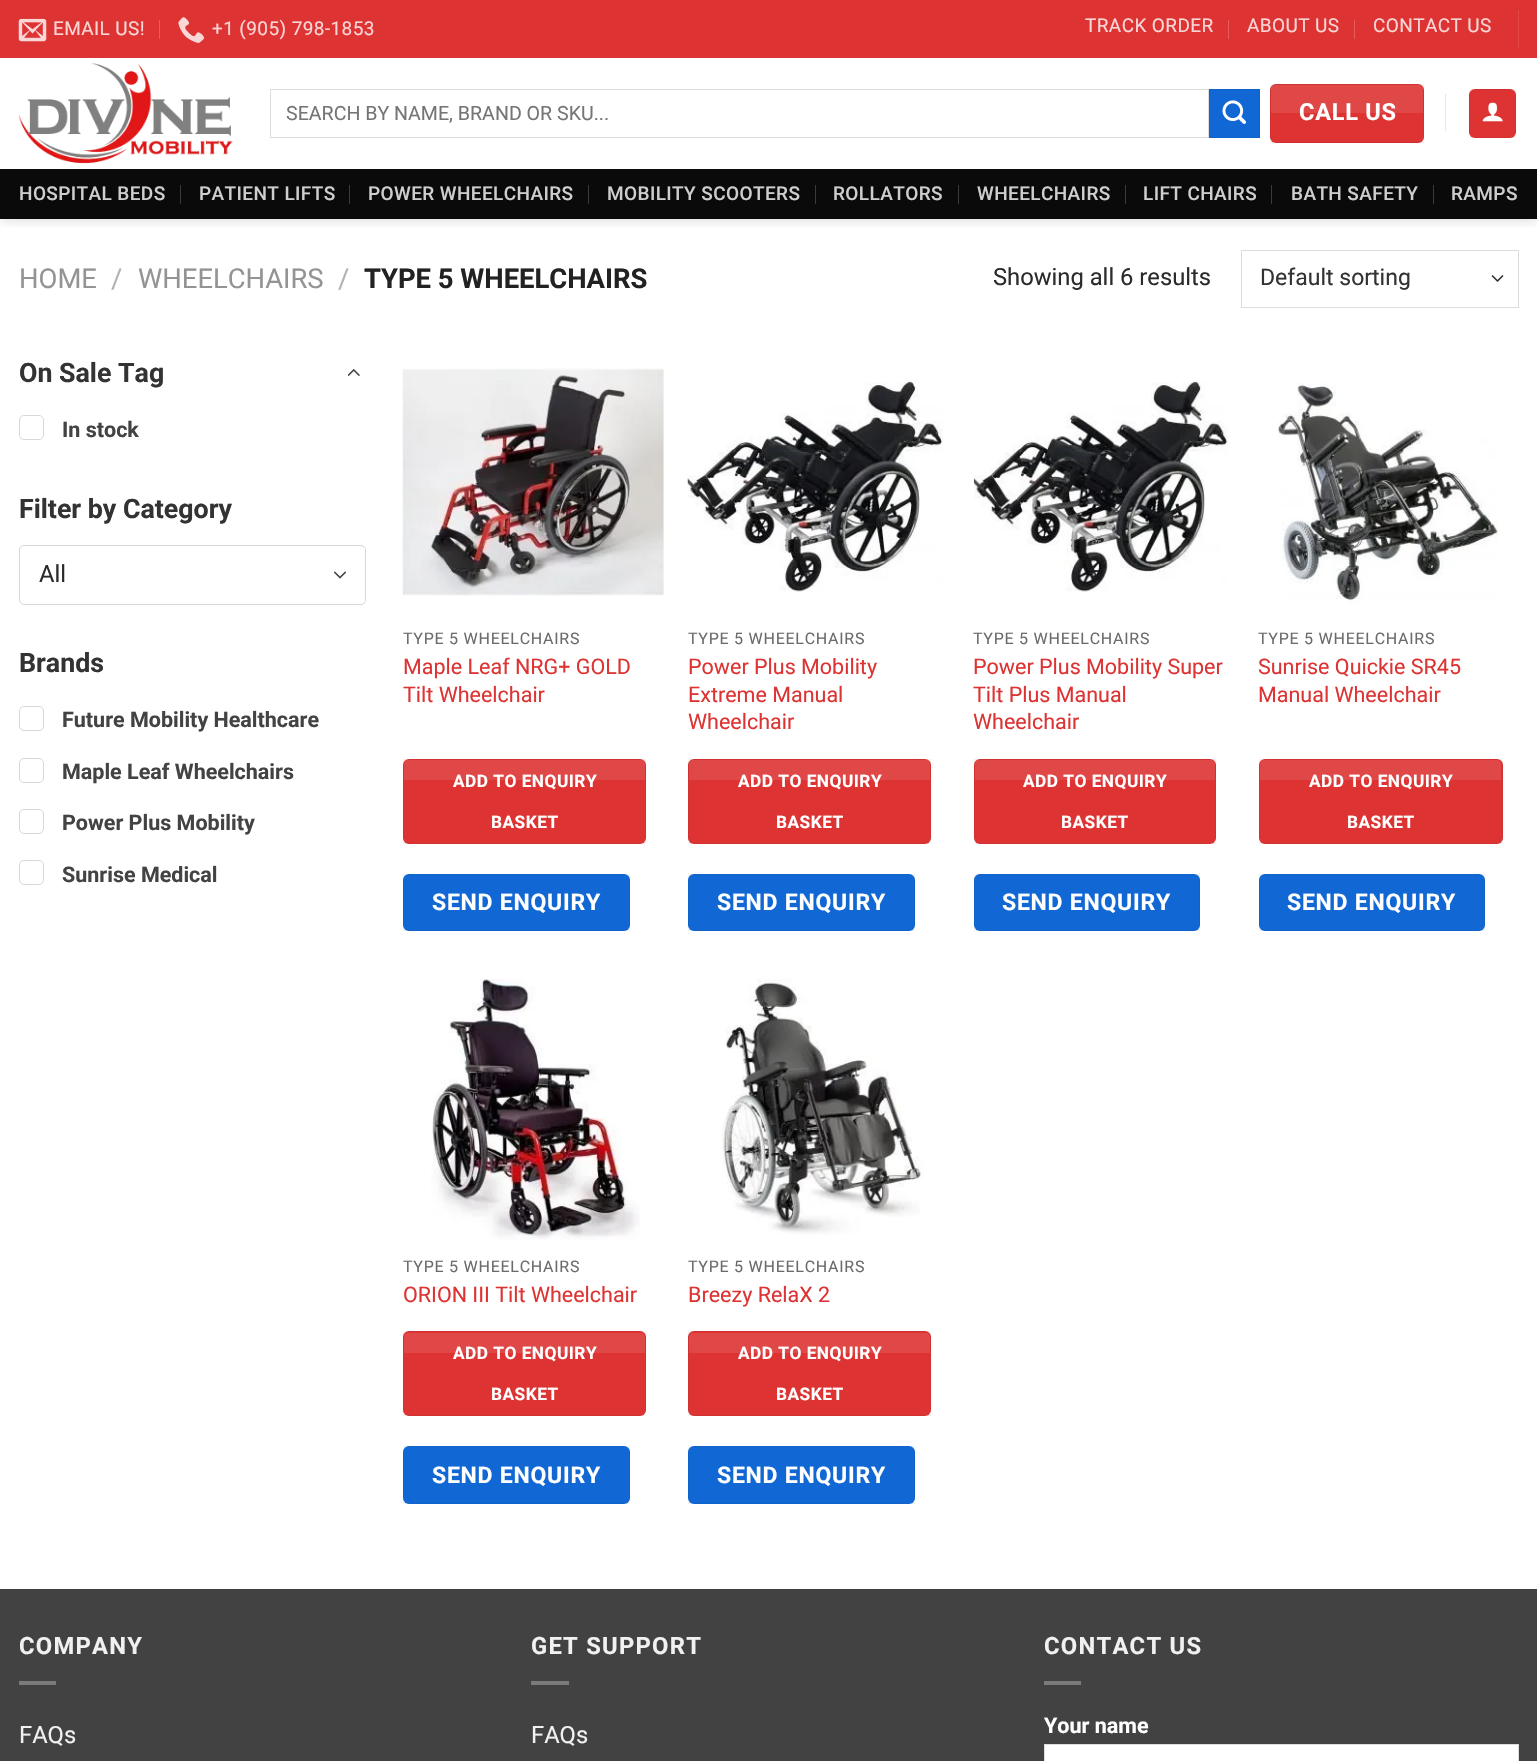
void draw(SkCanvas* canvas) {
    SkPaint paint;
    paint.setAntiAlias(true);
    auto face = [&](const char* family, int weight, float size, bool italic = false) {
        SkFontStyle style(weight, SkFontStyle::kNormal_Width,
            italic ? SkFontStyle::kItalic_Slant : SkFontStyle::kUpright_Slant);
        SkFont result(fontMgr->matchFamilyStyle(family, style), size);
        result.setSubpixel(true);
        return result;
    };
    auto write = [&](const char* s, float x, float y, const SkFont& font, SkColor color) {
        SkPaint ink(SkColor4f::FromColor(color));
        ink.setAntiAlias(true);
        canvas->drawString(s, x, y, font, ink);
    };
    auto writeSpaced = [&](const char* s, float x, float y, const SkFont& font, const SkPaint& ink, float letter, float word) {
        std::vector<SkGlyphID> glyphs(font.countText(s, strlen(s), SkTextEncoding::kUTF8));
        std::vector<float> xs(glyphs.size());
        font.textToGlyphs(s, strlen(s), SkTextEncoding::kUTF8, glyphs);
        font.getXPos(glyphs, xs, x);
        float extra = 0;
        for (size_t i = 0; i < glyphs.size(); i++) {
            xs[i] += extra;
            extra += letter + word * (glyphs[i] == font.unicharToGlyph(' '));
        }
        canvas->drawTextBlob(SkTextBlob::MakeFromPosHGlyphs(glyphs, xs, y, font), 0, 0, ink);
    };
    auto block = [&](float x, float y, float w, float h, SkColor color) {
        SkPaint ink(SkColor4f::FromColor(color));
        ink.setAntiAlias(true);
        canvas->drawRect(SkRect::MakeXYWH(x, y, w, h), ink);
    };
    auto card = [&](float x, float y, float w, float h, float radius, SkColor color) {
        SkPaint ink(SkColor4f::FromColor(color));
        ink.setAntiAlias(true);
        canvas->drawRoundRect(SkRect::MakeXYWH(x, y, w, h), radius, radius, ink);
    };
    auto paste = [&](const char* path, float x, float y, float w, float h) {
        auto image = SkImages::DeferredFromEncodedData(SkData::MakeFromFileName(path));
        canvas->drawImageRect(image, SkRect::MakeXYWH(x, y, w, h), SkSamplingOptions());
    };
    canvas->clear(SK_ColorWHITE);
    canvas->save();
    canvas->clipRect(SkRect::MakeXYWH(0, 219, 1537, 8));
    paint.setColor(SkColorSetARGB(38, 0, 0, 0));
    paint.setMaskFilter(SkMaskFilter::MakeBlur(kNormal_SkBlurStyle, 6));
    canvas->drawRect(SkRect::MakeXYWH(1, 1, 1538, 219), paint);
    paint.setMaskFilter(nullptr);
    canvas->restore();
    block(0, 0, 1537, 58, SkColorSetRGB(221, 51, 51));
    paste("pic1.png", 18, 18, 29, 24);
    auto kFont1 = face("Roboto", 400, 19);
    paint.setColor(SkColorSetRGB(248, 214, 214));
    writeSpaced("EMAIL US!", 53, 35, kFont1, paint, 0.4f, 0);
    block(159, 20, 1, 19, SkColorSetRGB(228, 92, 92));
    paste("pic2.png", 178, 17, 27, 26);
    writeSpaced("+1 (905) 798-1853", 212, 35, kFont1, paint, 0.4f, 0);
    writeSpaced("TRACK ORDER", 1085, 32, kFont1, paint, 0.4f, 0);
    block(1228, 20, 1, 19, SkColorSetRGB(228, 92, 92));
    writeSpaced("ABOUT US", 1247, 32, kFont1, paint, 0.4f, 0);
    block(1354, 20, 1, 19, SkColorSetRGB(228, 92, 92));
    writeSpaced("CONTACT US", 1373, 32, kFont1, paint, 0.4f, 0);
    block(1518, 10, 1, 38, SkColorSetRGB(224, 71, 71));
    paste("pic3.png", 18, 63, 215, 101);
    paint.setStyle(SkPaint::kStroke_Style);
    paint.setStrokeWidth(1);
    paint.setColor(SkColorSetRGB(221, 221, 221));
    canvas->drawRect(SkRect::MakeXYWH(270.5f, 89.5f, 938, 48), paint);
    auto kFont2 = face("Roboto", 400, 19.6f);
    write("SEARCH BY NAME, BRAND OR SKU...", 286, 120, kFont2, SkColorSetRGB(117, 117, 117));
    paint.setStyle(SkPaint::kFill_Style);
    paint.setColor(SkColorSetRGB(17, 104, 212));
    canvas->drawRect(SkRect::MakeXYWH(1209.5f, 89.5f, 50, 48), paint);
    paint.setStyle(SkPaint::kStroke_Style);
    paint.setColor(SkColorSetRGB(16, 99, 201));
    canvas->drawRect(SkRect::MakeXYWH(1209.5f, 89.5f, 50, 48), paint);
    paste("pic4.png", 1222, 100, 24, 24);
    card(1270, 84, 154, 59, 6, SkColorSetRGB(221, 51, 51));
    paint.setColor(SkColorSetARGB(13, 0, 0, 0));
    canvas->drawRect(SkRect::MakeXYWH(1270.5f, 84.5f, 153, 58), paint);
    paint.setStyle(SkPaint::kFill_Style);
    paint.setColor(SkColorSetARGB(26, 255, 255, 255));
    canvas->drawPath(SkPathBuilder().moveTo(1276, 85).lineTo(1418, 85).cubicTo(1421, 85, 1423, 87, 1423, 90).lineTo(1423, 113).lineTo(1271, 113).lineTo(1271, 90).cubicTo(1271, 87, 1273, 85, 1276, 85).close().detach(), paint);
    auto kFont3 = face("Roboto", 700, 23.5f);
    paint.setColor(SK_ColorWHITE);
    writeSpaced("CALL US", 1299, 120, kFont3, paint, 0.75f, 0);
    block(1445, 94, 1, 37, SkColorSetRGB(230, 230, 230));
    card(1469, 89, 47, 49, 6, SkColorSetRGB(221, 51, 51));
    paint.setStyle(SkPaint::kStroke_Style);
    paint.setColor(SkColorSetARGB(13, 0, 0, 0));
    canvas->drawRect(SkRect::MakeXYWH(1469.5f, 89.5f, 46, 48), paint);
    paste("pic5.png", 1482, 102, 21, 20);
    block(0, 169, 1537, 50, SkColorSetRGB(10, 10, 10));
    block(19, 169, 1500, 1, SkColorSetRGB(13, 13, 13));
    auto kFont4 = face("Roboto", 500, 19);
    paint.setStyle(SkPaint::kFill_Style);
    paint.setColor(SkColorSetRGB(206, 206, 206));
    writeSpaced("HOSPITAL BEDS", 19, 200, kFont4, paint, 0.4f, 0);
    block(180, 185, 1, 19, SkColorSetRGB(59, 59, 59));
    writeSpaced("PATIENT LIFTS", 199, 200, kFont4, paint, 0.4f, 0);
    block(349, 185, 1, 19, SkColorSetRGB(59, 59, 59));
    writeSpaced("POWER WHEELCHAIRS", 368, 200, kFont4, paint, 0.4f, 0);
    block(588, 185, 1, 19, SkColorSetRGB(59, 59, 59));
    writeSpaced("MOBILITY SCOOTERS", 607, 200, kFont4, paint, 0.4f, 0);
    block(815, 185, 1, 19, SkColorSetRGB(59, 59, 59));
    writeSpaced("ROLLATORS", 833, 200, kFont4, paint, 0.4f, 0);
    block(958, 185, 1, 19, SkColorSetRGB(59, 59, 59));
    writeSpaced("WHEELCHAIRS", 977, 200, kFont4, paint, 0.4f, 0);
    block(1125, 185, 1, 19, SkColorSetRGB(59, 59, 59));
    writeSpaced("LIFT CHAIRS", 1143, 200, kFont4, paint, 0.4f, 0);
    block(1271, 185, 1, 19, SkColorSetRGB(59, 59, 59));
    writeSpaced("BATH SAFETY", 1291, 200, kFont4, paint, 0.4f, 0);
    block(1433, 185, 1, 19, SkColorSetRGB(59, 59, 59));
    writeSpaced("RAMPS", 1451, 200, kFont4, paint, 0.4f, 0);
    auto kFont5 = face("Roboto", 400, 27.4f);
    write("HOME", 19, 288, kFont5, SkColorSetRGB(148, 148, 148));
    write("/", 111, 288, kFont5, SkColorSetRGB(178, 178, 178));
    write("WHEELCHAIRS", 138, 288, kFont5, SkColorSetRGB(148, 148, 148));
    write("/", 338, 288, kFont5, SkColorSetRGB(178, 178, 178));
    auto kFont6 = face("Roboto", 700, 27.4f);
    write("TYPE 5 WHEELCHAIRS", 364, 288, kFont6, SkColorSetRGB(34, 34, 34));
    auto kFont7 = face("Roboto", 400, 23.75f);
    write("Showing all 6 results", 993, 285, kFont7, SkColorSetRGB(43, 43, 43));
    paint.setStyle(SkPaint::kStroke_Style);
    paint.setStrokeWidth(1.7f);
    paint.setStrokeCap(SkPaint::kRound_Cap);
    paint.setStrokeJoin(SkPaint::kRound_Join);
    paint.setColor(SkColorSetRGB(51, 51, 51));
    canvas->drawPath(SkPathBuilder().moveTo(1492.5f, 276).lineTo(1497.5f, 281).lineTo(1502.5f, 276).detach(), paint);
    paint.setStrokeWidth(1);
    paint.setStrokeCap(SkPaint::kButt_Cap);
    paint.setStrokeJoin(SkPaint::kMiter_Join);
    paint.setColor(SkColorSetRGB(221, 221, 221));
    canvas->drawRect(SkRect::MakeXYWH(1241.5f, 250.5f, 277, 57), paint);
    auto kFont8 = face("Roboto", 400, 23);
    write("Default sorting", 1260, 285, kFont8, SkColorSetRGB(51, 51, 51));
    auto kFont9 = face("Roboto", 700, 26.75f);
    write("On Sale Tag", 19, 382, kFont9, SkColorSetRGB(51, 51, 51));
    paste("pic6.png", 348, 368, 12, 9);
    paint.setColor(SkColorSetRGB(215, 215, 215));
    canvas->drawRoundRect(SkRect::MakeXYWH(19.5f, 415.5f, 24, 24), 4.5f, 4.5f, paint);
    auto kFont10 = face("Roboto", 700, 21.5f);
    write("In stock", 62, 437, kFont10, SkColorSetRGB(67, 67, 67));
    write("Filter by Category", 19, 518, kFont9, SkColorSetRGB(51, 51, 51));
    canvas->drawRoundRect(SkRect::MakeXYWH(19.5f, 545.5f, 346, 59), 4.5f, 4.5f, paint);
    write("All", 39, 582, kFont7, SkColorSetRGB(43, 43, 43));
    paste("pic7.png", 334, 571, 12, 8);
    write("Brands", 19, 672, kFont9, SkColorSetRGB(51, 51, 51));
    canvas->drawRoundRect(SkRect::MakeXYWH(19.5f, 706.5f, 24, 24), 4.5f, 4.5f, paint);
    write("Future Mobility Healthcare", 62, 727, kFont10, SkColorSetRGB(67, 67, 67));
    canvas->drawRoundRect(SkRect::MakeXYWH(19.5f, 758.5f, 24, 24), 4.5f, 4.5f, paint);
    write("Maple Leaf Wheelchairs", 62, 779, kFont10, SkColorSetRGB(67, 67, 67));
    canvas->drawRoundRect(SkRect::MakeXYWH(19.5f, 809.5f, 24, 24), 4.5f, 4.5f, paint);
    write("Power Plus Mobility", 62, 830, kFont10, SkColorSetRGB(67, 67, 67));
    canvas->drawRoundRect(SkRect::MakeXYWH(19.5f, 860.5f, 24, 24), 4.5f, 4.5f, paint);
    write("Sunrise Medical", 62, 882, kFont10, SkColorSetRGB(67, 67, 67));
    paste("pic8.png", 402, 368, 262, 228);
    auto kFont11 = face("Roboto", 400, 16);
    paint.setStyle(SkPaint::kFill_Style);
    paint.setColor(SkColorSetRGB(107, 107, 107));
    writeSpaced("TYPE 5 WHEELCHAIRS", 403, 644, kFont11, paint, 0.75f, 0);
    auto kFont12 = face("Roboto", 400, 21.5f);
    write("Maple Leaf NRG+ GOLD", 403, 674, kFont12, SkColorSetRGB(221, 51, 51));
    write("Tilt Wheelchair", 403, 702, kFont12, SkColorSetRGB(221, 51, 51));
    card(403, 759, 243, 85, 6, SkColorSetRGB(221, 51, 51));
    paint.setStyle(SkPaint::kStroke_Style);
    paint.setColor(SkColorSetARGB(13, 0, 0, 0));
    canvas->drawRect(SkRect::MakeXYWH(403.5f, 759.5f, 242, 84), paint);
    paint.setStyle(SkPaint::kFill_Style);
    paint.setColor(SkColorSetARGB(26, 255, 255, 255));
    canvas->drawPath(SkPathBuilder().moveTo(409, 760).lineTo(640, 760).cubicTo(643, 760, 645, 762, 645, 765).lineTo(645, 780).lineTo(404, 780).lineTo(404, 765).cubicTo(404, 762, 406, 760, 409, 760).close().detach(), paint);
    auto kFont13 = face("Roboto", 700, 17.25f);
    paint.setColor(SK_ColorWHITE);
    writeSpaced("ADD TO ENQUIRY", 453, 787, kFont13, paint, 0.5f, 0);
    writeSpaced("BASKET", 491, 828, kFont13, paint, 0.5f, 0);
    card(403, 874, 227, 57, 6, SkColorSetRGB(17, 104, 212));
    paint.setStyle(SkPaint::kStroke_Style);
    paint.setColor(SkColorSetARGB(13, 0, 0, 0));
    canvas->drawRect(SkRect::MakeXYWH(403.5f, 874.5f, 226, 56), paint);
    auto kFont14 = face("Roboto", 700, 23);
    paint.setStyle(SkPaint::kFill_Style);
    paint.setColor(SK_ColorWHITE);
    writeSpaced("SEND ENQUIRY", 432, 910, kFont14, paint, 0.75f, 0);
    paste("pic9.png", 687, 380, 256, 212);
    paint.setColor(SkColorSetRGB(107, 107, 107));
    writeSpaced("TYPE 5 WHEELCHAIRS", 688, 644, kFont11, paint, 0.75f, 0);
    write("Power Plus Mobility", 688, 674, kFont12, SkColorSetRGB(221, 51, 51));
    write("Extreme Manual", 688, 702, kFont12, SkColorSetRGB(221, 51, 51));
    write("Wheelchair", 688, 729, kFont12, SkColorSetRGB(221, 51, 51));
    card(688, 759, 243, 85, 6, SkColorSetRGB(221, 51, 51));
    paint.setStyle(SkPaint::kStroke_Style);
    paint.setColor(SkColorSetARGB(13, 0, 0, 0));
    canvas->drawRect(SkRect::MakeXYWH(688.5f, 759.5f, 242, 84), paint);
    paint.setStyle(SkPaint::kFill_Style);
    paint.setColor(SkColorSetARGB(26, 255, 255, 255));
    canvas->drawPath(SkPathBuilder().moveTo(694, 760).lineTo(925, 760).cubicTo(928, 760, 930, 762, 930, 765).lineTo(930, 780).lineTo(689, 780).lineTo(689, 765).cubicTo(689, 762, 691, 760, 694, 760).close().detach(), paint);
    paint.setColor(SK_ColorWHITE);
    writeSpaced("ADD TO ENQUIRY", 738, 787, kFont13, paint, 0.5f, 0);
    writeSpaced("BASKET", 776, 828, kFont13, paint, 0.5f, 0);
    card(688, 874, 227, 57, 6, SkColorSetRGB(17, 104, 212));
    paint.setStyle(SkPaint::kStroke_Style);
    paint.setColor(SkColorSetARGB(13, 0, 0, 0));
    canvas->drawRect(SkRect::MakeXYWH(688.5f, 874.5f, 226, 56), paint);
    paint.setStyle(SkPaint::kFill_Style);
    paint.setColor(SK_ColorWHITE);
    writeSpaced("SEND ENQUIRY", 717, 910, kFont14, paint, 0.75f, 0);
    paste("pic10.png", 973, 380, 255, 212);
    paint.setColor(SkColorSetRGB(107, 107, 107));
    writeSpaced("TYPE 5 WHEELCHAIRS", 973, 644, kFont11, paint, 0.75f, 0);
    write("Power Plus Mobility Super", 973, 674, kFont12, SkColorSetRGB(221, 51, 51));
    write("Tilt Plus Manual", 973, 702, kFont12, SkColorSetRGB(221, 51, 51));
    write("Wheelchair", 973, 729, kFont12, SkColorSetRGB(221, 51, 51));
    card(974, 759, 242, 85, 6, SkColorSetRGB(221, 51, 51));
    paint.setStyle(SkPaint::kStroke_Style);
    paint.setColor(SkColorSetARGB(13, 0, 0, 0));
    canvas->drawRect(SkRect::MakeXYWH(974.5f, 759.5f, 241, 84), paint);
    paint.setStyle(SkPaint::kFill_Style);
    paint.setColor(SkColorSetARGB(26, 255, 255, 255));
    canvas->drawPath(SkPathBuilder().moveTo(980, 760).lineTo(1210, 760).cubicTo(1213, 760, 1215, 762, 1215, 765).lineTo(1215, 780).lineTo(975, 780).lineTo(975, 765).cubicTo(975, 762, 977, 760, 980, 760).close().detach(), paint);
    paint.setColor(SK_ColorWHITE);
    writeSpaced("ADD TO ENQUIRY", 1023, 787, kFont13, paint, 0.5f, 0);
    writeSpaced("BASKET", 1061, 828, kFont13, paint, 0.5f, 0);
    card(974, 874, 226, 57, 6, SkColorSetRGB(17, 104, 212));
    paint.setStyle(SkPaint::kStroke_Style);
    paint.setColor(SkColorSetARGB(13, 0, 0, 0));
    canvas->drawRect(SkRect::MakeXYWH(974.5f, 874.5f, 225, 56), paint);
    paint.setStyle(SkPaint::kFill_Style);
    paint.setColor(SK_ColorWHITE);
    writeSpaced("SEND ENQUIRY", 1002, 910, kFont14, paint, 0.75f, 0);
    paste("pic11.png", 1278, 383, 220, 220);
    paint.setColor(SkColorSetRGB(107, 107, 107));
    writeSpaced("TYPE 5 WHEELCHAIRS", 1258, 644, kFont11, paint, 0.75f, 0);
    write("Sunrise Quickie SR45", 1258, 674, kFont12, SkColorSetRGB(221, 51, 51));
    write("Manual Wheelchair", 1258, 702, kFont12, SkColorSetRGB(221, 51, 51));
    card(1259, 759, 244, 85, 6, SkColorSetRGB(221, 51, 51));
    paint.setStyle(SkPaint::kStroke_Style);
    paint.setColor(SkColorSetARGB(13, 0, 0, 0));
    canvas->drawRect(SkRect::MakeXYWH(1259.5f, 759.5f, 243, 84), paint);
    paint.setStyle(SkPaint::kFill_Style);
    paint.setColor(SkColorSetARGB(26, 255, 255, 255));
    canvas->drawPath(SkPathBuilder().moveTo(1265, 760).lineTo(1496, 760).cubicTo(1499, 760, 1501, 762, 1501, 765).lineTo(1501, 780).lineTo(1260, 780).lineTo(1260, 765).cubicTo(1260, 762, 1262, 760, 1265, 760).close().detach(), paint);
    paint.setColor(SK_ColorWHITE);
    writeSpaced("ADD TO ENQUIRY", 1309, 787, kFont13, paint, 0.5f, 0);
    writeSpaced("BASKET", 1347, 828, kFont13, paint, 0.5f, 0);
    card(1259, 874, 226, 57, 6, SkColorSetRGB(17, 104, 212));
    paint.setStyle(SkPaint::kStroke_Style);
    paint.setColor(SkColorSetARGB(13, 0, 0, 0));
    canvas->drawRect(SkRect::MakeXYWH(1259.5f, 874.5f, 225, 56), paint);
    paint.setStyle(SkPaint::kFill_Style);
    paint.setColor(SK_ColorWHITE);
    writeSpaced("SEND ENQUIRY", 1287, 910, kFont14, paint, 0.75f, 0);
    paste("pic12.png", 431, 979, 209, 261);
    paint.setColor(SkColorSetRGB(107, 107, 107));
    writeSpaced("TYPE 5 WHEELCHAIRS", 403, 1272, kFont11, paint, 0.75f, 0);
    write("ORION III Tilt Wheelchair", 403, 1302, kFont12, SkColorSetRGB(221, 51, 51));
    card(403, 1331, 243, 85, 6, SkColorSetRGB(221, 51, 51));
    paint.setStyle(SkPaint::kStroke_Style);
    paint.setColor(SkColorSetARGB(13, 0, 0, 0));
    canvas->drawRect(SkRect::MakeXYWH(403.5f, 1331.5f, 242, 84), paint);
    paint.setStyle(SkPaint::kFill_Style);
    paint.setColor(SkColorSetARGB(26, 255, 255, 255));
    canvas->drawPath(SkPathBuilder().moveTo(409, 1333).lineTo(640, 1333).cubicTo(643, 1333, 645, 1335, 645, 1338).lineTo(645, 1353).lineTo(404, 1353).lineTo(404, 1338).cubicTo(404, 1335, 406, 1333, 409, 1333).close().detach(), paint);
    paint.setColor(SK_ColorWHITE);
    writeSpaced("ADD TO ENQUIRY", 453, 1359, kFont13, paint, 0.5f, 0);
    writeSpaced("BASKET", 491, 1400, kFont13, paint, 0.5f, 0);
    card(403, 1446, 227, 58, 6, SkColorSetRGB(17, 104, 212));
    paint.setStyle(SkPaint::kStroke_Style);
    paint.setColor(SkColorSetARGB(13, 0, 0, 0));
    canvas->drawRect(SkRect::MakeXYWH(403.5f, 1446.5f, 226, 57), paint);
    paint.setStyle(SkPaint::kFill_Style);
    paint.setColor(SK_ColorWHITE);
    writeSpaced("SEND ENQUIRY", 432, 1483, kFont14, paint, 0.75f, 0);
    paste("pic13.png", 722, 979, 202, 256);
    paint.setColor(SkColorSetRGB(107, 107, 107));
    writeSpaced("TYPE 5 WHEELCHAIRS", 688, 1272, kFont11, paint, 0.75f, 0);
    write("Breezy RelaX 2", 688, 1302, kFont12, SkColorSetRGB(221, 51, 51));
    card(688, 1331, 243, 85, 6, SkColorSetRGB(221, 51, 51));
    paint.setStyle(SkPaint::kStroke_Style);
    paint.setColor(SkColorSetARGB(13, 0, 0, 0));
    canvas->drawRect(SkRect::MakeXYWH(688.5f, 1331.5f, 242, 84), paint);
    paint.setStyle(SkPaint::kFill_Style);
    paint.setColor(SkColorSetARGB(26, 255, 255, 255));
    canvas->drawPath(SkPathBuilder().moveTo(694, 1333).lineTo(925, 1333).cubicTo(928, 1333, 930, 1335, 930, 1338).lineTo(930, 1353).lineTo(689, 1353).lineTo(689, 1338).cubicTo(689, 1335, 691, 1333, 694, 1333).close().detach(), paint);
    paint.setColor(SK_ColorWHITE);
    writeSpaced("ADD TO ENQUIRY", 738, 1359, kFont13, paint, 0.5f, 0);
    writeSpaced("BASKET", 776, 1400, kFont13, paint, 0.5f, 0);
    card(688, 1446, 227, 58, 6, SkColorSetRGB(17, 104, 212));
    paint.setStyle(SkPaint::kStroke_Style);
    paint.setColor(SkColorSetARGB(13, 0, 0, 0));
    canvas->drawRect(SkRect::MakeXYWH(688.5f, 1446.5f, 226, 57), paint);
    paint.setStyle(SkPaint::kFill_Style);
    paint.setColor(SK_ColorWHITE);
    writeSpaced("SEND ENQUIRY", 717, 1483, kFont14, paint, 0.75f, 0);
    block(0, 1590, 1537, 171, SkColorSetRGB(66, 66, 66));
    block(0, 1589, 1537, 1, SkColorSetRGB(63, 63, 63));
    auto kFont15 = face("Roboto", 700, 23.75f);
    paint.setColor(SkColorSetRGB(241, 241, 241));
    writeSpaced("COMPANY", 19, 1654, kFont15, paint, 1.25f, 0);
    block(19, 1681, 37, 4, SkColorSetRGB(123, 123, 123));
    write("FAQs", 19, 1743, kFont7, SkColorSetRGB(241, 241, 241));
    writeSpaced("GET SUPPORT", 531, 1654, kFont15, paint, 1.25f, 0);
    block(531, 1681, 38, 4, SkColorSetRGB(123, 123, 123));
    write("FAQs", 531, 1743, kFont7, SkColorSetRGB(241, 241, 241));
    writeSpaced("CONTACT US", 1044, 1654, kFont15, paint, 1.25f, 0);
    block(1044, 1681, 37, 4, SkColorSetRGB(123, 123, 123));
    write("Your name", 1044, 1733, kFont10, SK_ColorWHITE);
    paint.setColor(SK_ColorWHITE);
    canvas->drawRect(SkRect::MakeXYWH(1044.5f, 1744.5f, 474, 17), paint);
    paint.setStyle(SkPaint::kStroke_Style);
    paint.setColor(SkColorSetRGB(221, 221, 221));
    canvas->drawRect(SkRect::MakeXYWH(1044.5f, 1744.5f, 474, 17), paint);
}
